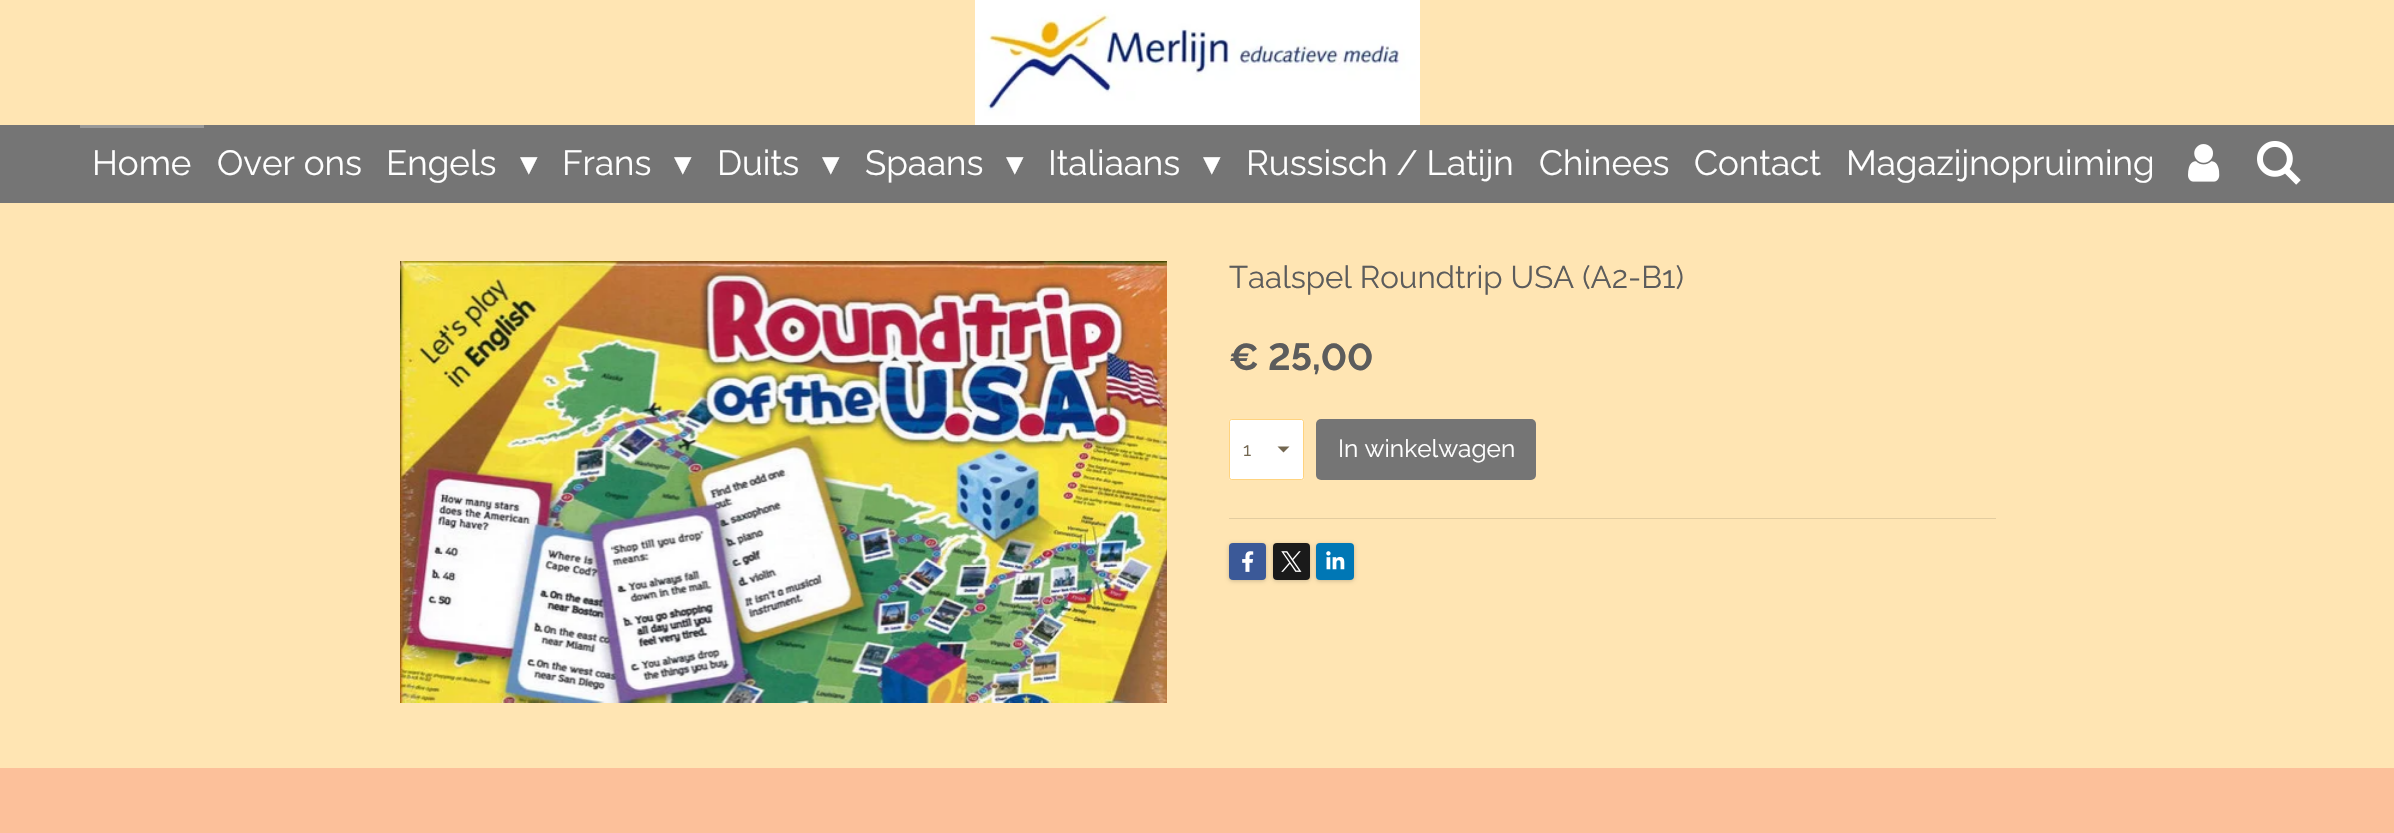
void draw(SkCanvas* canvas) {
    SkPaint paint;
    paint.setAntiAlias(true);
    auto face = [&](const char* family, int weight, float size, bool italic = false) {
        SkFontStyle style(weight, SkFontStyle::kNormal_Width,
            italic ? SkFontStyle::kItalic_Slant : SkFontStyle::kUpright_Slant);
        SkFont result(fontMgr->matchFamilyStyle(family, style), size);
        result.setSubpixel(true);
        return result;
    };
    auto write = [&](const char* s, float x, float y, const SkFont& font, SkColor color) {
        SkPaint ink(SkColor4f::FromColor(color));
        ink.setAntiAlias(true);
        canvas->drawString(s, x, y, font, ink);
    };
    auto block = [&](float x, float y, float w, float h, SkColor color) {
        SkPaint ink(SkColor4f::FromColor(color));
        ink.setAntiAlias(true);
        canvas->drawRect(SkRect::MakeXYWH(x, y, w, h), ink);
    };
    auto card = [&](float x, float y, float w, float h, float radius, SkColor color) {
        SkPaint ink(SkColor4f::FromColor(color));
        ink.setAntiAlias(true);
        canvas->drawRoundRect(SkRect::MakeXYWH(x, y, w, h), radius, radius, ink);
    };
    auto paste = [&](const char* path, float x, float y, float w, float h) {
        auto image = SkImages::DeferredFromEncodedData(SkData::MakeFromFileName(path));
        canvas->drawImageRect(image, SkRect::MakeXYWH(x, y, w, h), SkSamplingOptions());
    };
    canvas->clear(SkColorSetRGB(255, 229, 179));
    paste("pic1.png", 975, 0, 445, 125);
    block(0, 125, 2394, 78, SkColorSetRGB(117, 117, 117));
    block(80, 125, 124, 3, SkColorSetRGB(153, 153, 153));
    auto kFont1 = face("Raleway", 400, 35);
    write("Home", 92, 175, kFont1, SK_ColorWHITE);
    write("Over ons", 217, 175, kFont1, SK_ColorWHITE);
    write("Engels", 386, 175, kFont1, SK_ColorWHITE);
    auto kFont2 = face("DejaVu Sans", 400, 35);
    write("▾", 520, 175, kFont2, SK_ColorWHITE);
    write("Frans", 562, 175, kFont1, SK_ColorWHITE);
    write("▾", 674, 175, kFont2, SK_ColorWHITE);
    write("Duits", 717, 175, kFont1, SK_ColorWHITE);
    write("▾", 822, 175, kFont2, SK_ColorWHITE);
    write("Spaans", 865, 175, kFont1, SK_ColorWHITE);
    write("▾", 1006, 175, kFont2, SK_ColorWHITE);
    write("Italiaans", 1048, 175, kFont1, SK_ColorWHITE);
    write("▾", 1203, 175, kFont2, SK_ColorWHITE);
    write("Russisch / Latijn", 1246, 175, kFont1, SK_ColorWHITE);
    write("Chinees", 1539, 175, kFont1, SK_ColorWHITE);
    write("Contact", 1694, 175, kFont1, SK_ColorWHITE);
    write("Magazijnopruiming", 1846, 175, kFont1, SK_ColorWHITE);
    paste("pic2.png", 2188, 144, 32, 38);
    paste("pic3.png", 2257, 141, 44, 44);
    paste("pic4.png", 400, 261, 767, 442);
    auto kFont3 = face("Raleway", 400, 31.25f);
    write("Taalspel Roundtrip USA (A2-B1)", 1229, 288, kFont3, SkColorSetRGB(92, 92, 92));
    auto kFont4 = face("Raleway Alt", 700, 37.5f);
    write("€ 25,00", 1229, 370, kFont4, SkColorSetRGB(92, 92, 92));
    card(1229, 419, 75, 61, 2.5f, SK_ColorWHITE);
    paint.setColor(SkColorSetRGB(115, 103, 81));
    canvas->drawPath(SkPathBuilder().moveTo(1283.5f, 452.5f).lineTo(1277.5f, 446.5f).lineTo(1289.5f, 446.5f).close().detach(), paint);
    paint.setStyle(SkPaint::kStroke_Style);
    paint.setStrokeWidth(1);
    paint.setColor(SkColorSetARGB(128, 255, 168, 0));
    canvas->drawRoundRect(SkRect::MakeXYWH(1229.5f, 419.5f, 74, 60), 2, 2, paint);
    auto kFont5 = face("Raleway", 400, 19);
    write("1", 1243, 456, kFont5, SkColorSetRGB(115, 103, 81));
    card(1316, 419, 220, 61, 5, SkColorSetRGB(117, 117, 117));
    auto kFont6 = face("Raleway", 400, 24.5f);
    write("In winkelwagen", 1338, 457, kFont6, SK_ColorWHITE);
    block(1229, 518, 767, 1, SkColorSetRGB(227, 204, 159));
    paint.setStyle(SkPaint::kFill_Style);
    paint.setColor(SkColorSetARGB(51, 0, 0, 0));
    paint.setMaskFilter(SkMaskFilter::MakeBlur(kNormal_SkBlurStyle, 2));
    canvas->drawRoundRect(SkRect::MakeXYWH(1229, 544, 37, 37), 4, 4, paint);
    paint.setMaskFilter(nullptr);
    card(1229, 543, 37, 37, 4, SkColorSetRGB(59, 89, 152));
    paste("pic5.png", 1242, 551, 12, 21);
    paint.setMaskFilter(SkMaskFilter::MakeBlur(kNormal_SkBlurStyle, 2));
    canvas->drawRoundRect(SkRect::MakeXYWH(1273, 544, 37, 37), 4, 4, paint);
    paint.setMaskFilter(nullptr);
    card(1273, 543, 37, 37, 4, SkColorSetRGB(26, 26, 26));
    paste("pic6.png", 1281, 551, 21, 21);
    paint.setMaskFilter(SkMaskFilter::MakeBlur(kNormal_SkBlurStyle, 2));
    canvas->drawRoundRect(SkRect::MakeXYWH(1316, 544, 38, 37), 4, 4, paint);
    paint.setMaskFilter(nullptr);
    card(1316, 543, 38, 37, 4, SkColorSetRGB(0, 119, 181));
    paste("pic7.png", 1326, 551, 19, 19);
    block(0, 768, 2394, 65, SkColorSetRGB(252, 192, 154));
}
